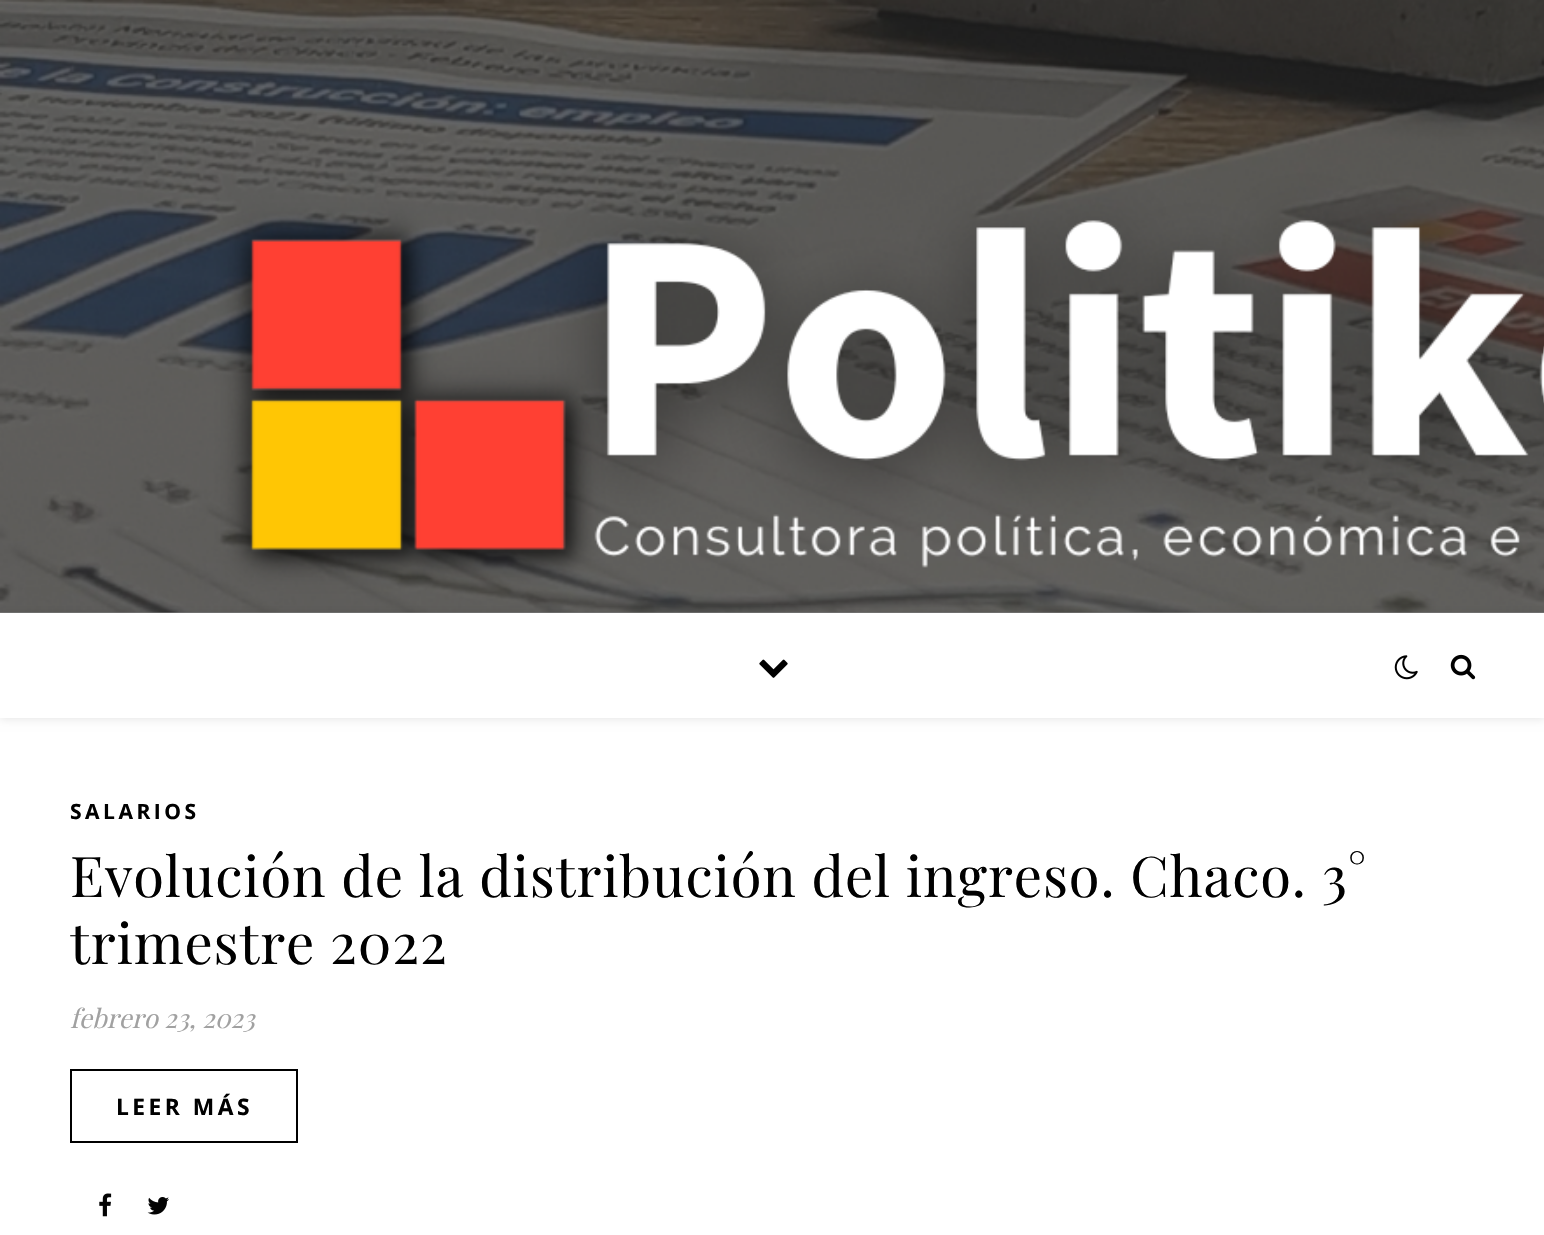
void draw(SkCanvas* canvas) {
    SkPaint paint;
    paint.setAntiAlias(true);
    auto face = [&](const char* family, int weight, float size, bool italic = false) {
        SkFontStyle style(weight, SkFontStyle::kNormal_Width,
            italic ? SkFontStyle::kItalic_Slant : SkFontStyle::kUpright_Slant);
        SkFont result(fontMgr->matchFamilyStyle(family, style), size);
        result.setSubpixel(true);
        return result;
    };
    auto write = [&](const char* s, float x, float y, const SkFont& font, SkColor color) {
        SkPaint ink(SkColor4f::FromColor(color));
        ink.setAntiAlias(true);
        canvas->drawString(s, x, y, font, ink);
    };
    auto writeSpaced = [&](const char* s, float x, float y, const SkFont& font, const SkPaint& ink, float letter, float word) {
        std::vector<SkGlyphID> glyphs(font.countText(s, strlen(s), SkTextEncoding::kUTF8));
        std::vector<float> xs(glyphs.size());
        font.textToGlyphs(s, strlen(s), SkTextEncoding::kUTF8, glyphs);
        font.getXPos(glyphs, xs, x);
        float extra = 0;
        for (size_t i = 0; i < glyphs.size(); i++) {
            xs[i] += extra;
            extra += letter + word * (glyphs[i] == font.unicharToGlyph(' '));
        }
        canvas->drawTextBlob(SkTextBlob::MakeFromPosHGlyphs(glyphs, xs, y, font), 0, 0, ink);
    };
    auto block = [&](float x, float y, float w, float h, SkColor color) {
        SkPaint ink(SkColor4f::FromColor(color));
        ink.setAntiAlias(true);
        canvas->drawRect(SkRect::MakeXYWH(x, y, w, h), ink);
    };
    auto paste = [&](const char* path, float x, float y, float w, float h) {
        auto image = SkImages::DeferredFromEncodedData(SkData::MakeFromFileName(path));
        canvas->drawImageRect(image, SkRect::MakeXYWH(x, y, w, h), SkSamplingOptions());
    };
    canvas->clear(SK_ColorWHITE);
    block(0, 612, 1544, 1, SkColorSetRGB(137, 137, 137));
    paste("pic1.png", 0, 0, 1544, 613);
    paint.setColor(SkColorSetARGB(26, 0, 0, 0));
    paint.setMaskFilter(SkMaskFilter::MakeBlur(kNormal_SkBlurStyle, 4.5f));
    canvas->drawRect(SkRect::MakeXYWH(0, 614, 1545, 105), paint);
    paint.setMaskFilter(nullptr);
    block(0, 613, 1544, 105, SK_ColorWHITE);
    paste("pic2.png", 759, 659, 29, 19);
    paste("pic3.png", 1394, 655, 24, 25);
    paste("pic4.png", 1450, 654, 26, 26);
    auto kFont1 = face("Open Sans", 700, 21);
    paint.setColor(SK_ColorBLACK);
    writeSpaced("SALARIOS", 70, 819, kFont1, paint, 3.5f, 0);
    auto kFont2 = face("Playfair Display", 400, 56);
    writeSpaced("Evolución de la distribución del ingreso. Chaco. 3°", 70, 897, kFont2, paint, 0.88f, 0);
    writeSpaced("trimestre 2022", 70, 964, kFont2, paint, 0.88f, 0);
    auto kFont3 = face("Playfair Display", 400, 26.25f, true);
    write("febrero 23, 2023", 70, 1028, kFont3, SkColorSetRGB(161, 161, 161));
    paint.setStyle(SkPaint::kStroke_Style);
    paint.setStrokeWidth(2);
    canvas->drawRect(SkRect::MakeXYWH(71, 1070, 226, 72), paint);
    auto kFont4 = face("Open Sans", 700, 22.75f);
    paint.setStyle(SkPaint::kFill_Style);
    writeSpaced("LEER MÁS", 116, 1115, kFont4, paint, 3.5f, 0);
    paste("pic5.png", 99, 1193, 13, 24);
    paste("pic6.png", 147, 1197, 22, 18);
}
